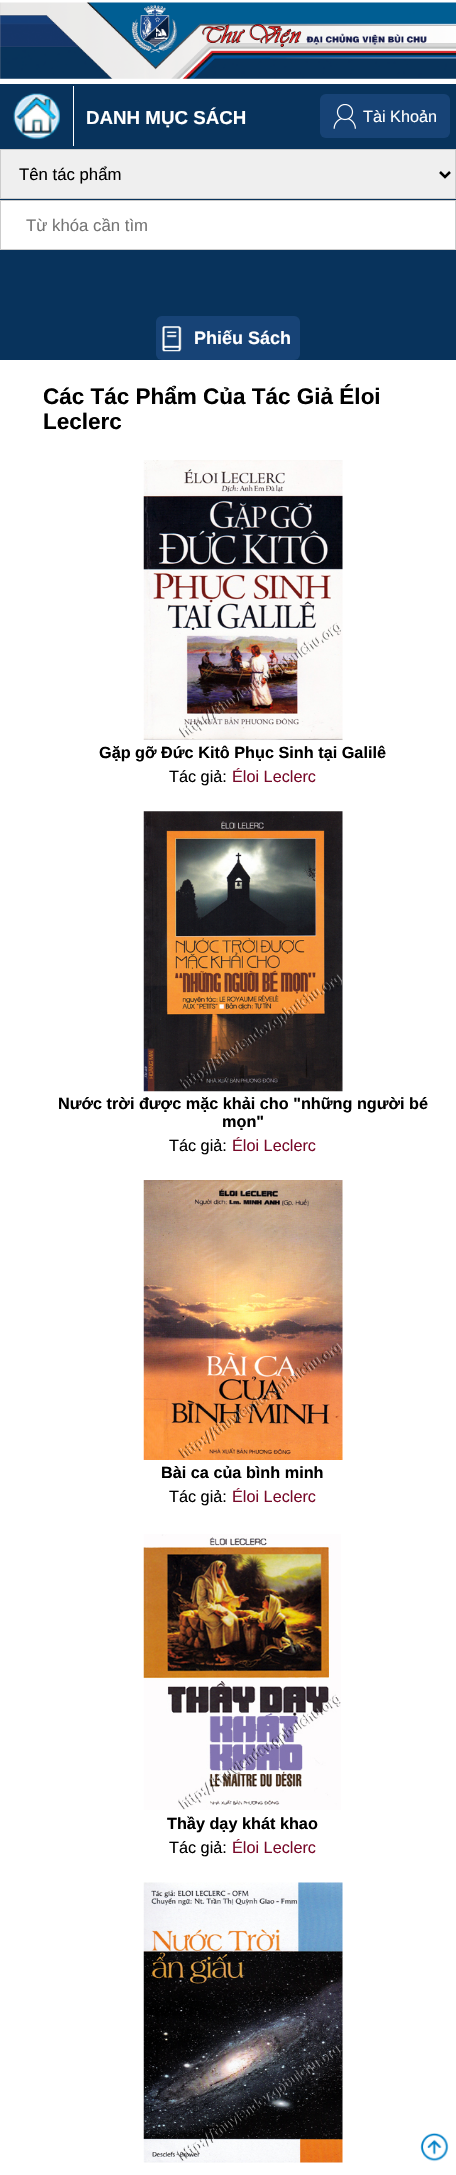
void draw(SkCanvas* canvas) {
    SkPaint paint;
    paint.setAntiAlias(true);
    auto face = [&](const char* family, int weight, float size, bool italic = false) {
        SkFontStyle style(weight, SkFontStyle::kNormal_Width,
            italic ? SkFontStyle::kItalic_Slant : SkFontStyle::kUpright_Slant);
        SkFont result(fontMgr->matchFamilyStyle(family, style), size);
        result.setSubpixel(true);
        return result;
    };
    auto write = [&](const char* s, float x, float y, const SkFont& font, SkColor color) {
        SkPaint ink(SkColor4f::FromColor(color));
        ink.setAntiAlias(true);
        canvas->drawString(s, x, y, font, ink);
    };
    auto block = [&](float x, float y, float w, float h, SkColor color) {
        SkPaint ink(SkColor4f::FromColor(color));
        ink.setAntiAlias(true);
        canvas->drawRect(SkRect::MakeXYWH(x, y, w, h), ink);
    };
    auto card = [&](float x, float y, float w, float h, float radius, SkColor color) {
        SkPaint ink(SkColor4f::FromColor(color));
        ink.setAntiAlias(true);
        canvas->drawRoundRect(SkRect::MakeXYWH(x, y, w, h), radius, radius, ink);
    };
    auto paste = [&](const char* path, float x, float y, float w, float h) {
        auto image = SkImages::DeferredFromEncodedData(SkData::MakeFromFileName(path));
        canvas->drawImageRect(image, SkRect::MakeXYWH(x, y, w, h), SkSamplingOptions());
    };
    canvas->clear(SK_ColorWHITE);
    paste("pic1.png", 0, 2, 456, 77);
    block(0, 84, 456, 276, SkColorSetRGB(8, 51, 92));
    block(73, 86, 1, 60, SK_ColorWHITE);
    paste("pic2.png", 13, 93, 47, 46);
    auto kFont1 = face("Liberation Sans", 700, 18.75f);
    write("DANH MỤC SÁCH", 86, 124, kFont1, SK_ColorWHITE);
    card(320, 94, 130, 44, 6, SkColorSetRGB(23, 67, 118));
    paste("pic3.png", 333, 104, 23, 25);
    auto kFont2 = face("Liberation Sans", 400, 16.25f);
    write("Tài Khoản", 363, 122, kFont2, SK_ColorWHITE);
    paint.setColor(SkColorSetRGB(239, 239, 239));
    canvas->drawRect(SkRect::MakeXYWH(0.5f, 149.5f, 455, 49), paint);
    paint.setStyle(SkPaint::kStroke_Style);
    paint.setStrokeWidth(1);
    paint.setColor(SkColorSetRGB(204, 204, 204));
    canvas->drawRect(SkRect::MakeXYWH(0.5f, 149.5f, 455, 49), paint);
    paint.setStrokeWidth(2.5f);
    paint.setColor(SK_ColorBLACK);
    canvas->drawPath(SkPathBuilder().moveTo(440, 172).lineTo(445, 177).lineTo(450, 172).detach(), paint);
    auto kFont3 = face("Liberation Sans", 400, 16.75f);
    write("Tên tác phẩm", 19, 180, kFont3, SK_ColorBLACK);
    paint.setStyle(SkPaint::kFill_Style);
    paint.setColor(SK_ColorWHITE);
    canvas->drawRect(SkRect::MakeXYWH(0.5f, 200.5f, 455, 49), paint);
    paint.setStyle(SkPaint::kStroke_Style);
    paint.setStrokeWidth(1);
    paint.setColor(SkColorSetRGB(204, 204, 204));
    canvas->drawRect(SkRect::MakeXYWH(0.5f, 200.5f, 455, 49), paint);
    write("Từ khóa cần tìm", 26, 231, kFont3, SkColorSetRGB(117, 117, 117));
    card(156, 316, 144, 44, 6, SkColorSetRGB(23, 67, 118));
    paste("pic4.png", 162, 326, 20, 26);
    auto kFont4 = face("Liberation Sans", 700, 18);
    write("Phiếu Sách", 194, 344, kFont4, SK_ColorWHITE);
    auto kFont5 = face("Liberation Sans", 700, 22.5f);
    write("Các Tác Phẩm Của Tác Giả Éloi", 43, 404, kFont5, SK_ColorBLACK);
    write("Leclerc", 43, 429, kFont5, SK_ColorBLACK);
    paste("pic5.png", 143, 460, 200, 280);
    auto kFont6 = face("Liberation Sans", 700, 16.25f);
    write("Gặp gỡ Đức Kitô Phục Sinh tại Galilê", 99, 758, kFont6, SK_ColorBLACK);
    write("Tác giả:", 169, 782, kFont2, SK_ColorBLACK);
    write("Éloi Leclerc", 232, 782, kFont2, SkColorSetRGB(120, 9, 41));
    paste("pic6.png", 143, 811, 200, 281);
    write("Nước trời được mặc khải cho \"những người bé", 58, 1109, kFont6, SK_ColorBLACK);
    write("mọn\"", 222, 1127, kFont6, SK_ColorBLACK);
    write("Tác giả:", 169, 1151, kFont2, SK_ColorBLACK);
    write("Éloi Leclerc", 232, 1151, kFont2, SkColorSetRGB(120, 9, 41));
    paste("pic7.png", 143, 1180, 200, 280);
    write("Bài ca của bình minh", 161, 1478, kFont6, SK_ColorBLACK);
    write("Tác giả:", 169, 1502, kFont2, SK_ColorBLACK);
    write("Éloi Leclerc", 232, 1502, kFont2, SkColorSetRGB(120, 9, 41));
    paste("pic8.png", 143, 1534, 198, 276);
    write("Thầy dạy khát khao", 167, 1829, kFont6, SK_ColorBLACK);
    write("Tác giả:", 169, 1853, kFont2, SK_ColorBLACK);
    write("Éloi Leclerc", 232, 1853, kFont2, SkColorSetRGB(120, 9, 41));
    paste("pic9.png", 143, 1882, 200, 281);
    paste("pic10.png", 420, 2133, 29, 29);
}
